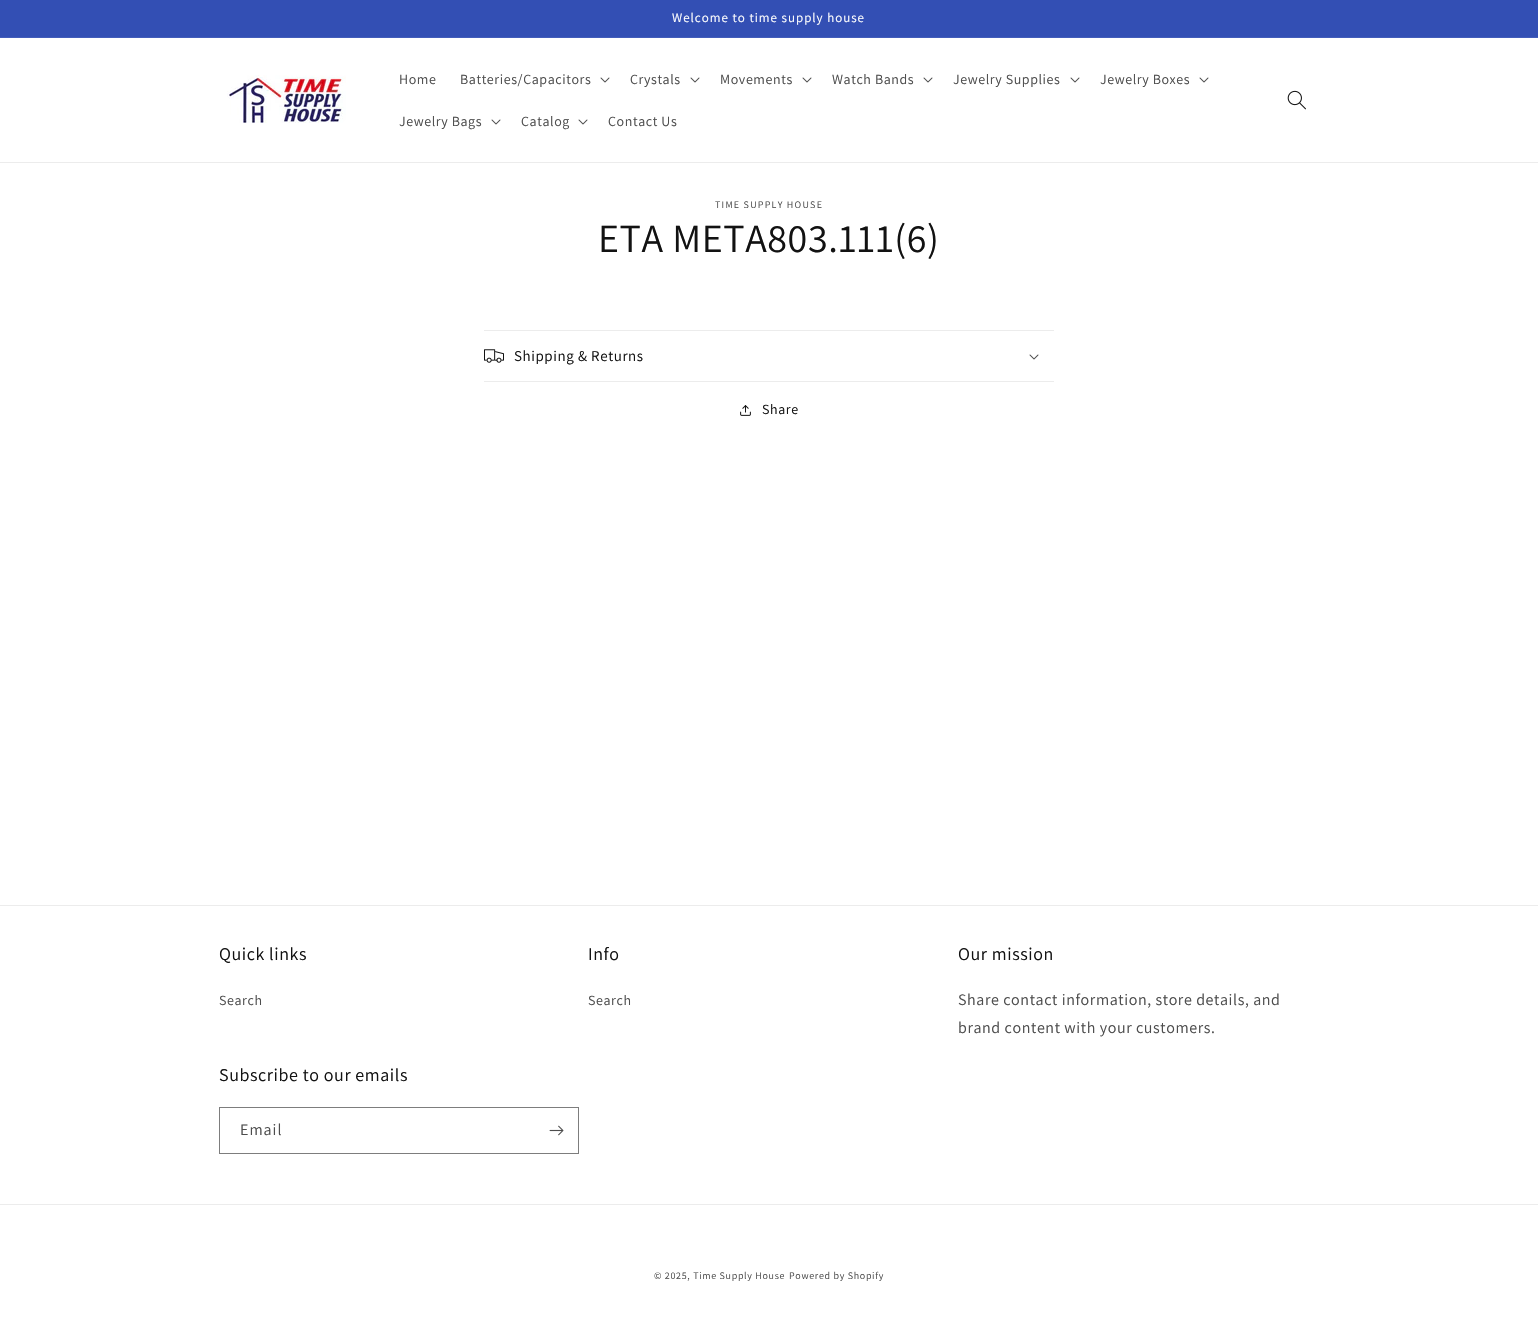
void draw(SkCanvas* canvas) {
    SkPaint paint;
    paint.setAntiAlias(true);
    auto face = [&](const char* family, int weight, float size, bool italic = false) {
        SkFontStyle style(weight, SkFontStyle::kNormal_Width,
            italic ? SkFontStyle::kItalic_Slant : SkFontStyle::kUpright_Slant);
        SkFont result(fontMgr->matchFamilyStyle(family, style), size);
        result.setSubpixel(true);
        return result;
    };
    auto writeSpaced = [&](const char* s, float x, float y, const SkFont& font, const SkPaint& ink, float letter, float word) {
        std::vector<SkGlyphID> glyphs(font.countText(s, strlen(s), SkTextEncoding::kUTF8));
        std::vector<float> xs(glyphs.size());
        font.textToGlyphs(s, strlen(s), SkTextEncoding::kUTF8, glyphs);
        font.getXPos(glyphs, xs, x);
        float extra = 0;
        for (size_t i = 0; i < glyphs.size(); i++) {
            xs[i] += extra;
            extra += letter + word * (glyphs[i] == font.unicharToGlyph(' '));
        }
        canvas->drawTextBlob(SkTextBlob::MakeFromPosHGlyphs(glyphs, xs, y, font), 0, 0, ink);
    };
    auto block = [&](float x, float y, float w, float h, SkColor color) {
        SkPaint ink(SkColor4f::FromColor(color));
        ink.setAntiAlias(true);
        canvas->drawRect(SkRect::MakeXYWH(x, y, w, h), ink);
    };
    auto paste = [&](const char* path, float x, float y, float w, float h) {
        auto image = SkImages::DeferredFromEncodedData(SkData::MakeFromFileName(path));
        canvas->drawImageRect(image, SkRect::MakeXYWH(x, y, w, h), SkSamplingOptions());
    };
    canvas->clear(SK_ColorWHITE);
    block(0, 0, 1538, 37, SkColorSetRGB(51, 79, 180));
    block(0, 37, 1538, 1, SkColorSetRGB(67, 93, 186));
    auto kFont1 = face("Assistant", 400, 13);
    paint.setColor(SK_ColorWHITE);
    writeSpaced("Welcome to time supply house", 672, 22, kFont1, paint, 1, 0);
    block(0, 162, 1538, 1, SkColorSetRGB(236, 236, 236));
    paste("pic1.png", 227, 75, 119, 48);
    auto kFont2 = face("Assistant", 400, 14);
    paint.setColor(SkColorSetRGB(77, 77, 77));
    writeSpaced("Home", 399, 84, kFont2, paint, 0.6f, 0);
    writeSpaced("Batteries/Capacitors", 460, 84, kFont2, paint, 0.6f, 0);
    paste("pic2.png", 600, 77, 10, 6);
    writeSpaced("Crystals", 630, 84, kFont2, paint, 0.6f, 0);
    paste("pic2.png", 690, 77, 10, 6);
    writeSpaced("Movements", 720, 84, kFont2, paint, 0.6f, 0);
    paste("pic2.png", 802, 77, 10, 6);
    writeSpaced("Watch Bands", 832, 84, kFont2, paint, 0.6f, 0);
    paste("pic2.png", 923, 77, 10, 6);
    writeSpaced("Jewelry Supplies", 953, 84, kFont2, paint, 0.6f, 0);
    paste("pic2.png", 1070, 77, 10, 6);
    writeSpaced("Jewelry Boxes", 1100, 84, kFont2, paint, 0.6f, 0);
    paste("pic2.png", 1199, 77, 10, 6);
    writeSpaced("Jewelry Bags", 399, 126, kFont2, paint, 0.6f, 0);
    paste("pic2.png", 491, 119, 10, 6);
    writeSpaced("Catalog", 521, 126, kFont2, paint, 0.6f, 0);
    paste("pic2.png", 578, 119, 10, 6);
    writeSpaced("Contact Us", 608, 126, kFont2, paint, 0.6f, 0);
    paste("pic3.png", 1287, 90, 19, 20);
    auto kFont3 = face("Assistant", 400, 10);
    writeSpaced("TIME SUPPLY HOUSE", 715, 208, kFont3, paint, 1.25f, 0);
    auto kFont4 = face("Assistant", 400, 40);
    paint.setColor(SkColorSetRGB(18, 18, 18));
    writeSpaced("ETA META803.111(6)", 598, 252, kFont4, paint, 0.6f, 0);
    block(484, 330, 570, 1, SkColorSetRGB(236, 236, 236));
    block(484, 381, 570, 1, SkColorSetRGB(236, 236, 236));
    paste("pic4.png", 484, 349, 20, 14);
    auto kFont5 = face("Assistant", 400, 15);
    writeSpaced("Shipping & Returns", 514, 361, kFont5, paint, 0.6f, 0);
    paste("pic2.png", 1029, 354, 10, 6);
    paste("pic5.png", 740, 405, 11, 11);
    writeSpaced("Share", 762, 414, kFont2, paint, 0.6f, 0);
    block(0, 905, 1538, 1, SkColorSetRGB(236, 236, 236));
    auto kFont6 = face("Assistant", 400, 18);
    writeSpaced("Quick links", 219, 960, kFont6, paint, 0.6f, 0);
    paint.setColor(SkColorSetRGB(77, 77, 77));
    writeSpaced("Search", 219, 1005, kFont2, paint, 0.6f, 0);
    paint.setColor(SkColorSetRGB(18, 18, 18));
    writeSpaced("Info", 588, 960, kFont6, paint, 0.6f, 0);
    paint.setColor(SkColorSetRGB(77, 77, 77));
    writeSpaced("Search", 588, 1005, kFont2, paint, 0.6f, 0);
    paint.setColor(SkColorSetRGB(18, 18, 18));
    writeSpaced("Our mission", 958, 960, kFont6, paint, 0.6f, 0);
    auto kFont7 = face("Assistant", 400, 16);
    paint.setColor(SkColorSetRGB(77, 77, 77));
    writeSpaced("Share contact information, store details, and", 958, 1005, kFont7, paint, 0.6f, 0);
    writeSpaced("brand content with your customers.", 958, 1033, kFont7, paint, 0.6f, 0);
    paint.setColor(SkColorSetRGB(18, 18, 18));
    writeSpaced("Subscribe to our emails", 219, 1081, kFont6, paint, 0.6f, 0);
    paint.setStyle(SkPaint::kStroke_Style);
    paint.setStrokeWidth(1);
    paint.setColor(SkColorSetRGB(125, 125, 125));
    canvas->drawRect(SkRect::MakeXYWH(219.5f, 1107.5f, 359, 46), paint);
    paint.setStyle(SkPaint::kFill_Style);
    paint.setColor(SkColorSetRGB(77, 77, 77));
    writeSpaced("Email", 240, 1135, kFont7, paint, 1, 0);
    paste("pic6.png", 549, 1125, 15, 11);
    block(0, 1204, 1538, 1, SkColorSetRGB(236, 236, 236));
    writeSpaced("© 2025, Time Supply House", 654, 1279, kFont3, paint, 0.7f, 0);
    writeSpaced("Powered by Shopify", 789, 1279, kFont3, paint, 0.7f, 0);
}
